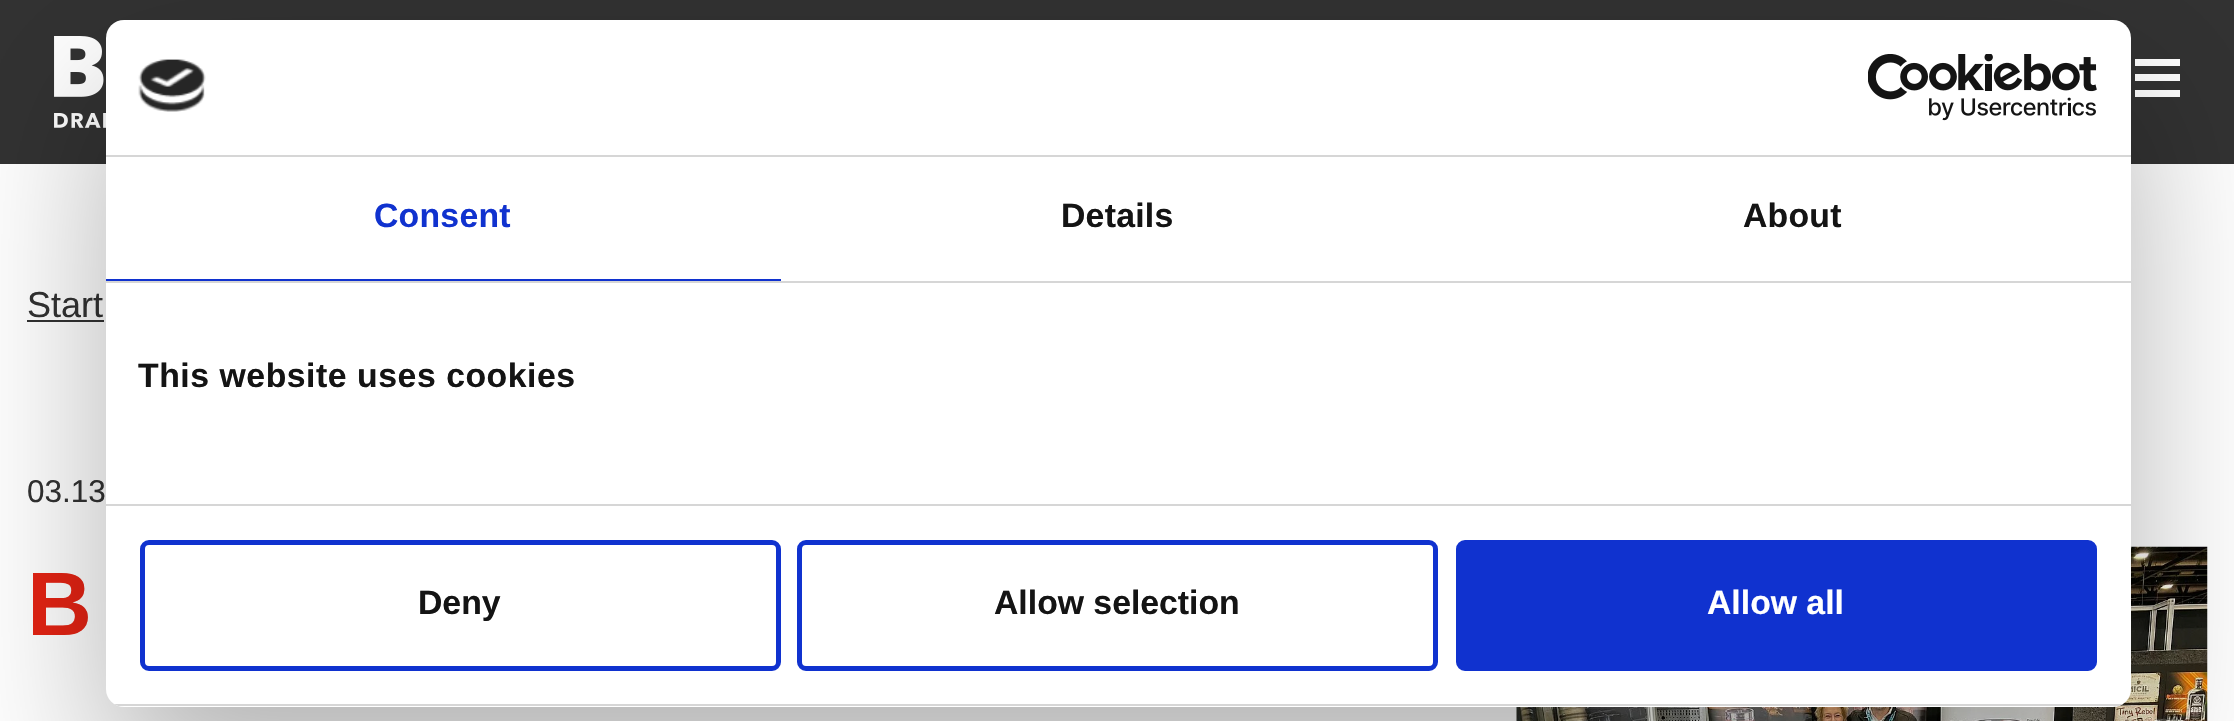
void draw(SkCanvas* canvas) {
    SkPaint paint;
    paint.setAntiAlias(true);
    auto face = [&](const char* family, int weight, float size, bool italic = false) {
        SkFontStyle style(weight, SkFontStyle::kNormal_Width,
            italic ? SkFontStyle::kItalic_Slant : SkFontStyle::kUpright_Slant);
        SkFont result(fontMgr->matchFamilyStyle(family, style), size);
        result.setSubpixel(true);
        return result;
    };
    auto write = [&](const char* s, float x, float y, const SkFont& font, SkColor color) {
        SkPaint ink(SkColor4f::FromColor(color));
        ink.setAntiAlias(true);
        canvas->drawString(s, x, y, font, ink);
    };
    auto writeSpaced = [&](const char* s, float x, float y, const SkFont& font, const SkPaint& ink, float letter, float word) {
        std::vector<SkGlyphID> glyphs(font.countText(s, strlen(s), SkTextEncoding::kUTF8));
        std::vector<float> xs(glyphs.size());
        font.textToGlyphs(s, strlen(s), SkTextEncoding::kUTF8, glyphs);
        font.getXPos(glyphs, xs, x);
        float extra = 0;
        for (size_t i = 0; i < glyphs.size(); i++) {
            xs[i] += extra;
            extra += letter + word * (glyphs[i] == font.unicharToGlyph(' '));
        }
        canvas->drawTextBlob(SkTextBlob::MakeFromPosHGlyphs(glyphs, xs, y, font), 0, 0, ink);
    };
    auto block = [&](float x, float y, float w, float h, SkColor color) {
        SkPaint ink(SkColor4f::FromColor(color));
        ink.setAntiAlias(true);
        canvas->drawRect(SkRect::MakeXYWH(x, y, w, h), ink);
    };
    auto card = [&](float x, float y, float w, float h, float radius, SkColor color) {
        SkPaint ink(SkColor4f::FromColor(color));
        ink.setAntiAlias(true);
        canvas->drawRoundRect(SkRect::MakeXYWH(x, y, w, h), radius, radius, ink);
    };
    auto paste = [&](const char* path, float x, float y, float w, float h) {
        auto image = SkImages::DeferredFromEncodedData(SkData::MakeFromFileName(path));
        canvas->drawImageRect(image, SkRect::MakeXYWH(x, y, w, h), SkSamplingOptions());
    };
    canvas->clear(SK_ColorWHITE);
    block(0, 0, 2234, 164, SkColorSetRGB(50, 50, 50));
    paste("pic1.png", 54, 36, 52, 92);
    block(2135, 59, 45, 7, SK_ColorWHITE);
    block(2135, 74, 45, 7, SK_ColorWHITE);
    block(2135, 90, 45, 7, SK_ColorWHITE);
    auto kFont1 = face("Liberation Sans", 400, 36);
    write("Start", 27, 317, kFont1, SkColorSetRGB(50, 50, 50));
    block(27, 320, 77, 2, SkColorSetRGB(50, 50, 50));
    auto kFont2 = face("Liberation Sans", 400, 31.5f);
    write("03.13", 27, 502, kFont2, SkColorSetRGB(50, 50, 50));
    auto kFont3 = face("Liberation Sans", 700, 90);
    write("B", 27, 635, kFont3, SkColorSetRGB(228, 35, 19));
    paste("pic2.png", 1516, 546, 692, 175);
    paint.setColor(SkColorSetARGB(77, 0, 0, 0));
    paint.setMaskFilter(SkMaskFilter::MakeBlur(kNormal_SkBlurStyle, 76.5f));
    canvas->drawRoundRect(SkRect::MakeXYWH(106, 92, 2025, 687), 18, 18, paint);
    paint.setMaskFilter(nullptr);
    card(106, 20, 2025, 687, 18, SK_ColorWHITE);
    block(106, 155, 2025, 2, SkColorSetRGB(214, 214, 214));
    paste("pic3.png", 138, 59, 68, 53);
    paste("pic4.png", 1868, 54, 229, 67);
    block(106, 281, 2025, 2, SkColorSetRGB(214, 214, 214));
    block(106, 279, 675, 2, SkColorSetRGB(16, 50, 207));
    auto kFont4 = face("Liberation Sans", 700, 33.75f);
    paint.setColor(SkColorSetRGB(16, 50, 207));
    writeSpaced("Consent", 374, 227, kFont4, paint, 0.25f, 0);
    paint.setColor(SkColorSetRGB(20, 20, 20));
    writeSpaced("Details", 1061, 227, kFont4, paint, 0.25f, 0);
    writeSpaced("About", 1743, 227, kFont4, paint, 0.25f, 0);
    block(106, 504, 2025, 2, SkColorSetRGB(214, 214, 214));
    writeSpaced("This website uses cookies", 138, 387, kFont4, paint, 0.55f, 0);
    canvas->save();
    canvas->clipPath(SkPathBuilder().moveTo(124, 20).lineTo(2113, 20).cubicTo(2123, 20, 2131, 28, 2131, 38).lineTo(2131, 689).cubicTo(2131, 699, 2123, 707, 2113, 707).lineTo(124, 707).cubicTo(114, 707, 106, 699, 106, 689).lineTo(106, 38).cubicTo(106, 28, 114, 20, 124, 20).close().detach(), true);
    block(106, 704, 2025, 2, SkColorSetRGB(214, 214, 214));
    canvas->restore();
    paint.setStyle(SkPaint::kStroke_Style);
    paint.setStrokeWidth(5);
    paint.setColor(SkColorSetRGB(16, 50, 207));
    canvas->drawRoundRect(SkRect::MakeXYWH(142.5f, 542.5f, 636, 126), 6.5f, 6.5f, paint);
    write("Deny", 418, 614, kFont4, SkColorSetRGB(20, 20, 20));
    canvas->drawRoundRect(SkRect::MakeXYWH(799.5f, 542.5f, 636, 126), 6.5f, 6.5f, paint);
    write("Allow selection", 994, 614, kFont4, SkColorSetRGB(20, 20, 20));
    paint.setStyle(SkPaint::kFill_Style);
    canvas->drawRoundRect(SkRect::MakeXYWH(1458.5f, 542.5f, 636, 126), 6.5f, 6.5f, paint);
    paint.setStyle(SkPaint::kStroke_Style);
    canvas->drawRoundRect(SkRect::MakeXYWH(1458.5f, 542.5f, 636, 126), 6.5f, 6.5f, paint);
    write("Allow all", 1707, 614, kFont4, SK_ColorWHITE);
}
